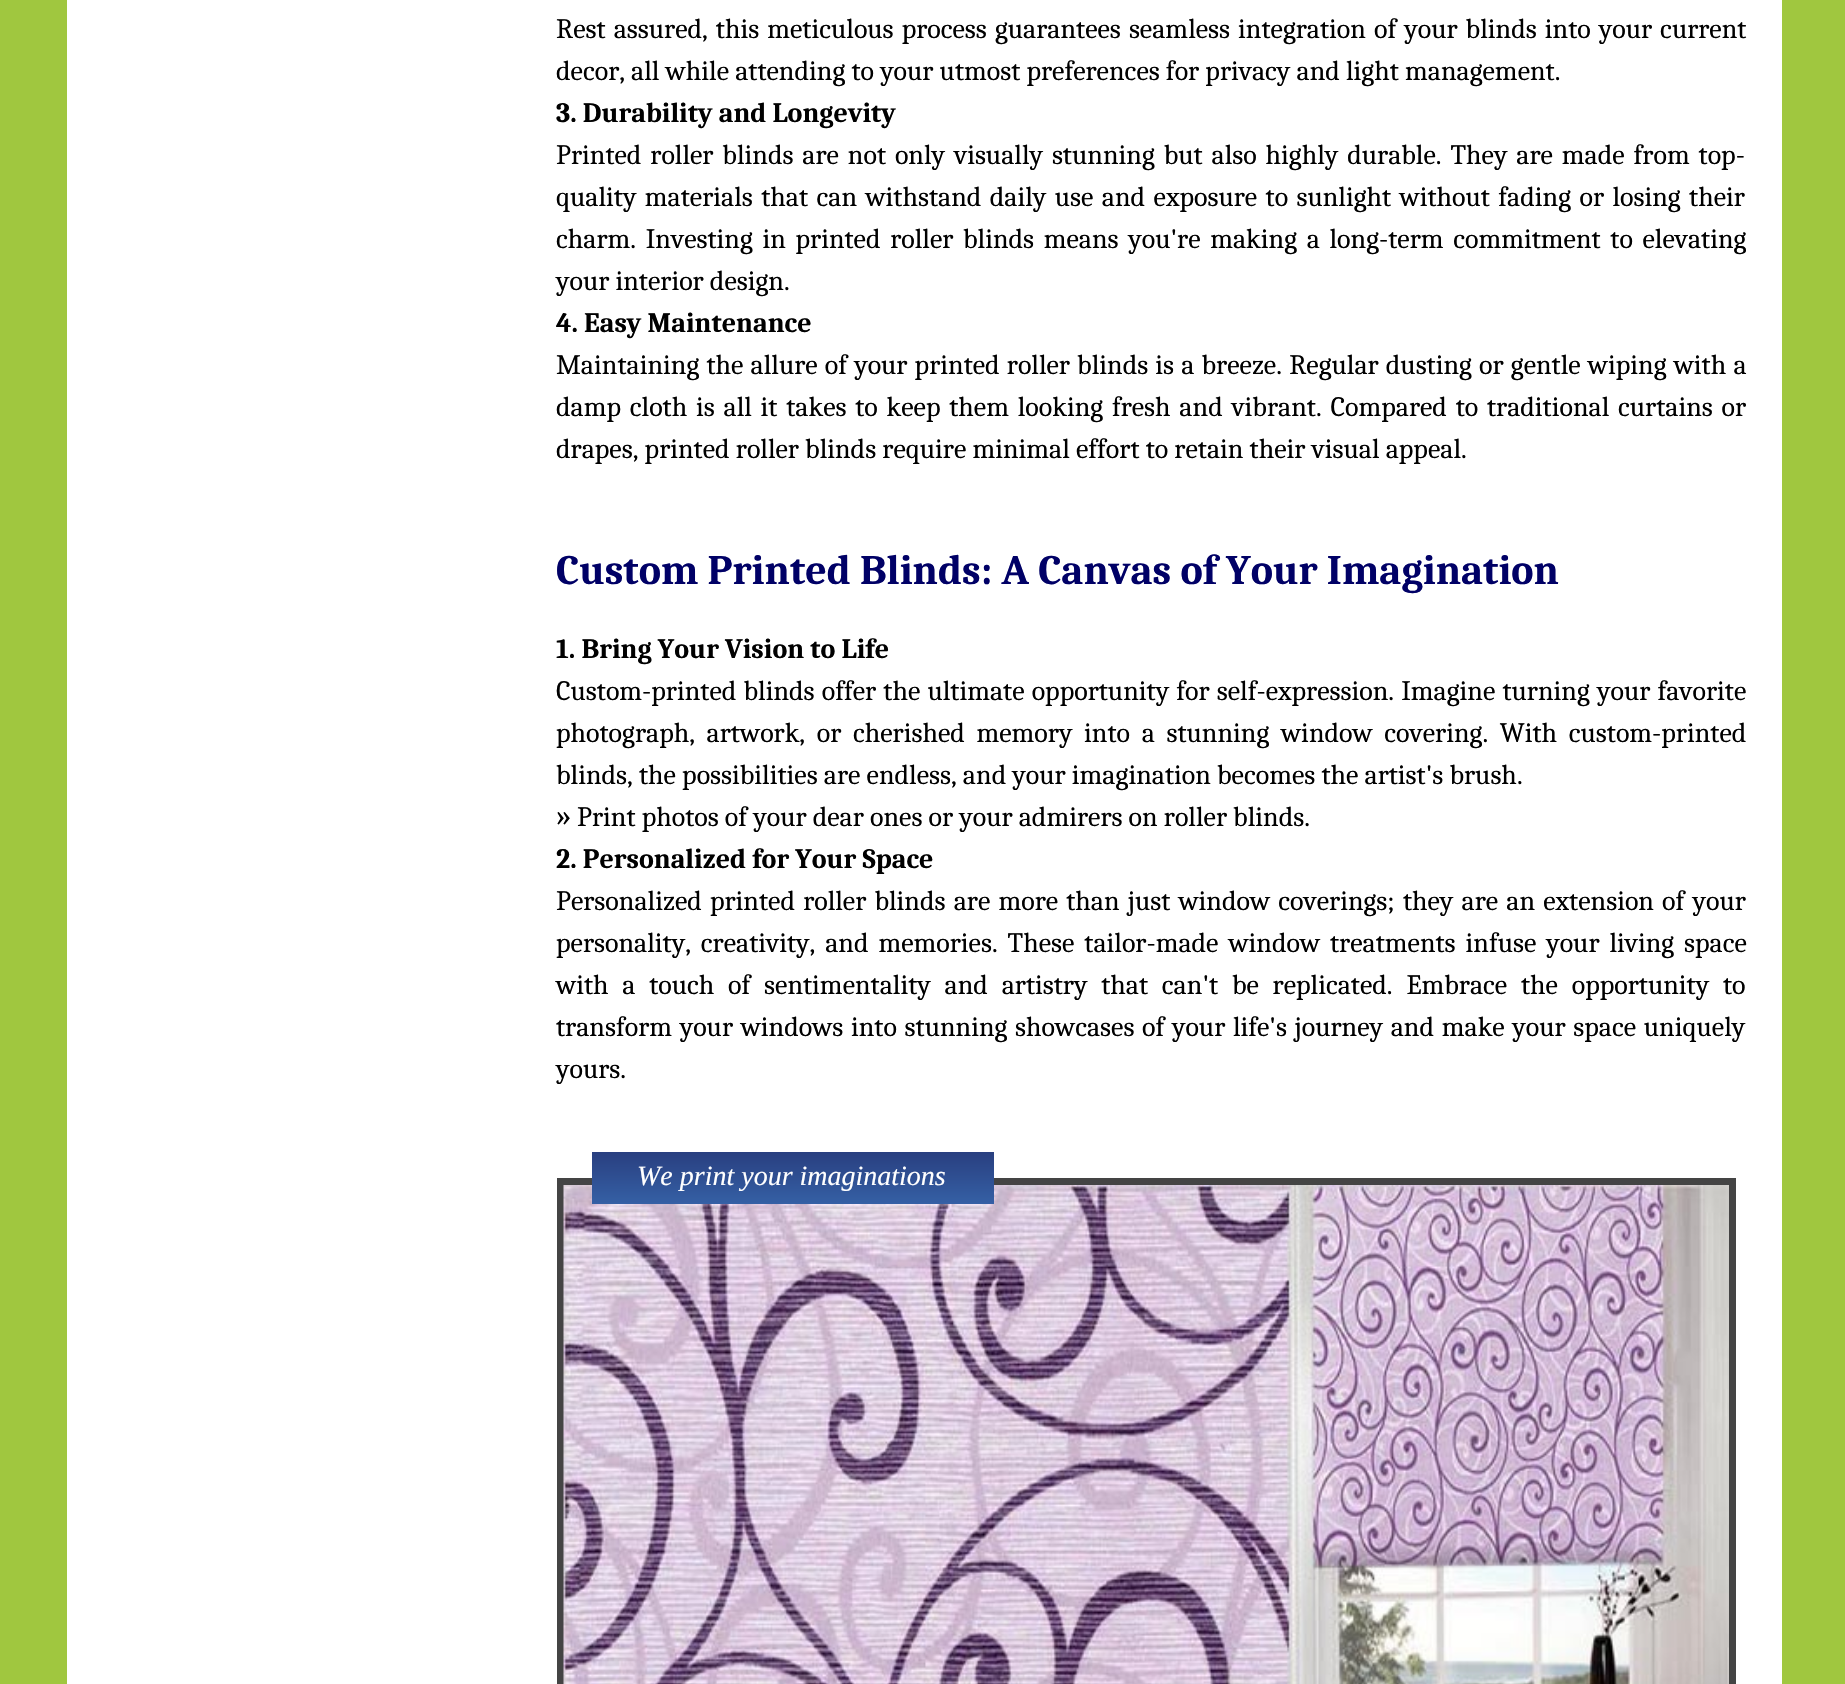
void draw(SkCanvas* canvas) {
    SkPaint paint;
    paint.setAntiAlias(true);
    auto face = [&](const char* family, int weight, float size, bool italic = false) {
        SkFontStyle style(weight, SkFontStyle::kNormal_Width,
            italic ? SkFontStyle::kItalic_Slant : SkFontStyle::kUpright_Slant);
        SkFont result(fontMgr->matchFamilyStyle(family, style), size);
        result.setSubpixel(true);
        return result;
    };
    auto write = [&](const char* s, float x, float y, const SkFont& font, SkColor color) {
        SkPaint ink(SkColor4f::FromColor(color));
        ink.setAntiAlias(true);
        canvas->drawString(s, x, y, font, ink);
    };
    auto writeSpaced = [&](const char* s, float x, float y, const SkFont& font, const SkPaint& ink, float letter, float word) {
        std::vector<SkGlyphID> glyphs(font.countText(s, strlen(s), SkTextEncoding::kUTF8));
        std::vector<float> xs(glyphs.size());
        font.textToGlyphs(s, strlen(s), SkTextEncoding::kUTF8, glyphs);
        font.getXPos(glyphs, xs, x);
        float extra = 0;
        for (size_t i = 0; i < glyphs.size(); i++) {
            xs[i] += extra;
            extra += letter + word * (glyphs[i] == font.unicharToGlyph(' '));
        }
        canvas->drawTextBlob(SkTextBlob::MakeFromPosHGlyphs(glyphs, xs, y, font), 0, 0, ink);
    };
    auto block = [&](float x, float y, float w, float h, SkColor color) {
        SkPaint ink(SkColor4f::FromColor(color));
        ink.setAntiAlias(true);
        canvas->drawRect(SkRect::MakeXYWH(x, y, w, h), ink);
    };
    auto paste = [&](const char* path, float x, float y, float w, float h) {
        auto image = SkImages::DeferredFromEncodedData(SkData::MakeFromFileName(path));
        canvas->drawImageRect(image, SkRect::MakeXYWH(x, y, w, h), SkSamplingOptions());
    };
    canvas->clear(SkColorSetRGB(160, 199, 63));
    block(67, 0, 1715, 1684, SK_ColorWHITE);
    auto kFont1 = face("Caladea", 400, 28);
    paint.setColor(SK_ColorBLACK);
    writeSpaced("Rest assured, this meticulous process guarantees seamless integration of your blinds into your current", 556, 38, kFont1, paint, 0, 1.9f);
    write("decor, all while attending to your utmost preferences for privacy and light management.", 556, 80, kFont1, SK_ColorBLACK);
    auto kFont2 = face("Caladea", 700, 28);
    write("3. Durability and Longevity", 556, 122, kFont2, SK_ColorBLACK);
    writeSpaced("Printed roller blinds are not only visually stunning but also highly durable. They are made from top-", 556, 164, kFont1, paint, 0, 2.75f);
    writeSpaced("quality materials that can withstand daily use and exposure to sunlight without fading or losing their", 556, 206, kFont1, paint, 0, 2.25f);
    writeSpaced("charm. Investing in printed roller blinds means you're making a long-term commitment to elevating", 556, 248, kFont1, paint, 0, 3.5f);
    write("your interior design.", 556, 290, kFont1, SK_ColorBLACK);
    write("4. Easy Maintenance", 556, 332, kFont2, SK_ColorBLACK);
    writeSpaced("Maintaining the allure of your printed roller blinds is a breeze. Regular dusting or gentle wiping with a", 556, 374, kFont1, paint, 0, 1);
    writeSpaced("damp cloth is all it takes to keep them looking fresh and vibrant. Compared to traditional curtains or", 556, 416, kFont1, paint, 0, 2.6f);
    write("drapes, printed roller blinds require minimal effort to retain their visual appeal.", 556, 458, kFont1, SK_ColorBLACK);
    auto kFont3 = face("Caladea", 700, 42);
    write("Custom Printed Blinds: A Canvas of Your Imagination", 556, 584, kFont3, SkColorSetRGB(0, 0, 102));
    write("1. Bring Your Vision to Life", 556, 658, kFont2, SK_ColorBLACK);
    writeSpaced("Custom-printed blinds offer the ultimate opportunity for self-expression. Imagine turning your favorite", 556, 700, kFont1, paint, 0, 1);
    writeSpaced("photograph, artwork, or cherished memory into a stunning window covering. With custom-printed", 556, 742, kFont1, paint, 0, 5.5f);
    write("blinds, the possibilities are endless, and your imagination becomes the artist's brush.", 556, 784, kFont1, SK_ColorBLACK);
    auto kFont4 = face("Caladea", 400, 32);
    write("»", 556, 826, kFont4, SK_ColorBLACK);
    write("Print photos of your dear ones or your admirers on roller blinds.", 577, 826, kFont1, SK_ColorBLACK);
    write("2. Personalized for Your Space", 556, 868, kFont2, SK_ColorBLACK);
    writeSpaced("Personalized printed roller blinds are more than just window coverings; they are an extension of your", 556, 910, kFont1, paint, 0, 2);
    writeSpaced("personality, creativity, and memories. These tailor-made window treatments infuse your living space", 556, 952, kFont1, paint, 0, 3.75f);
    writeSpaced("with a touch of sentimentality and artistry that can't be replicated. Embrace the opportunity to", 556, 994, kFont1, paint, 0, 7.6f);
    writeSpaced("transform your windows into stunning showcases of your life's journey and make your space uniquely", 556, 1036, kFont1, paint, 0, 1.5f);
    write("yours.", 556, 1078, kFont1, SK_ColorBLACK);
    paint.setStyle(SkPaint::kStroke_Style);
    paint.setStrokeWidth(7);
    paint.setColor(SkColorSetRGB(68, 68, 68));
    canvas->drawRect(SkRect::MakeXYWH(560.5f, 1181.5f, 1172, 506), paint);
    paste("pic1.png", 563, 1185, 1166, 499);
    paint.setStyle(SkPaint::kFill_Style);
    {
        const SkColor colors[] = {SkColorSetRGB(41, 63, 128), SkColorSetRGB(53, 96, 165)};
        const float stops[] = {0, 1};
        const SkPoint ends[] = {{592, 1152}, {592, 1204}};
        paint.setShader(SkGradientShader::MakeLinear(ends, colors, stops, 2, SkTileMode::kClamp));
        paint.setAlpha(255);
    }
    canvas->drawRect(SkRect::MakeXYWH(592, 1152, 402, 52), paint);
    auto kFont5 = face("Liberation Serif", 400, 28, true);
    write("We print your imaginations", 637, 1185, kFont5, SK_ColorWHITE);
}
